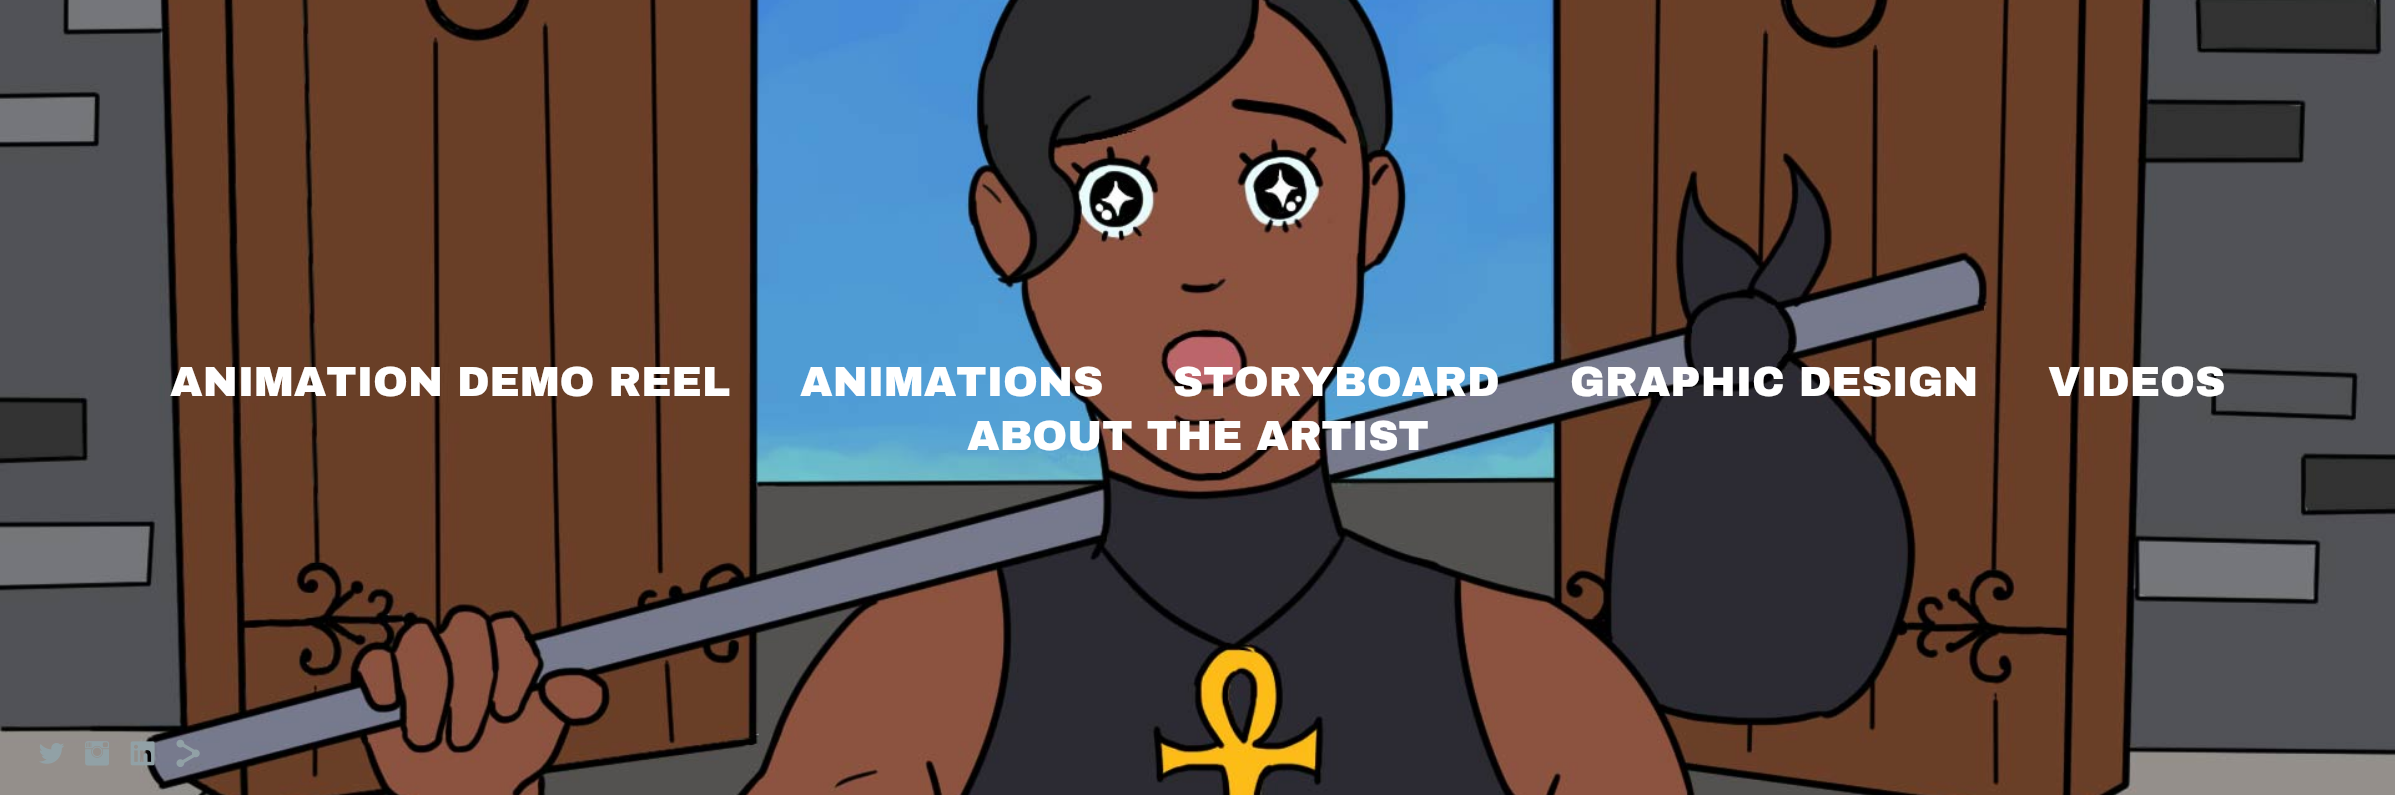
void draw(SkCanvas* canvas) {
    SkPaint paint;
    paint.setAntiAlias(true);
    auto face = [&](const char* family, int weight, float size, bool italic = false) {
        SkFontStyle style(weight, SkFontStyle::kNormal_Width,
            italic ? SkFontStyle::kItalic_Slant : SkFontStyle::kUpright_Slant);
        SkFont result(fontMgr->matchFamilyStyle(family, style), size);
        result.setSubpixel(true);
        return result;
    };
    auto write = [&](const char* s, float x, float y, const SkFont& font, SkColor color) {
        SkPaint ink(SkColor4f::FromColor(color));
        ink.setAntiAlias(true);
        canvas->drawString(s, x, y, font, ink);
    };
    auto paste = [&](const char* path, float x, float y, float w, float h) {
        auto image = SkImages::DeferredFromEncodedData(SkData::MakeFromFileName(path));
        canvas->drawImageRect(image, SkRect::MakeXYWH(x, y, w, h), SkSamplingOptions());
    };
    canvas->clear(SK_ColorWHITE);
    paste("pic1.png", 0, 0, 2395, 795);
    auto kFont1 = face("Archivo Black", 900, 42);
    write("ANIMATION DEMO REEL", 170, 396, kFont1, SK_ColorWHITE);
    write("ANIMATIONS", 800, 396, kFont1, SK_ColorWHITE);
    write("STORYBOARD", 1173, 396, kFont1, SK_ColorWHITE);
    write("GRAPHIC DESIGN", 1570, 396, kFont1, SK_ColorWHITE);
    write("VIDEOS", 2048, 396, kFont1, SK_ColorWHITE);
    write("ABOUT THE ARTIST", 967, 450, kFont1, SK_ColorWHITE);
    paste("pic2.png", 39, 743, 25, 21);
    paste("pic3.png", 85, 741, 24, 25);
    paste("pic4.png", 130, 741, 25, 25);
    paste("pic5.png", 176, 739, 24, 28);
}
